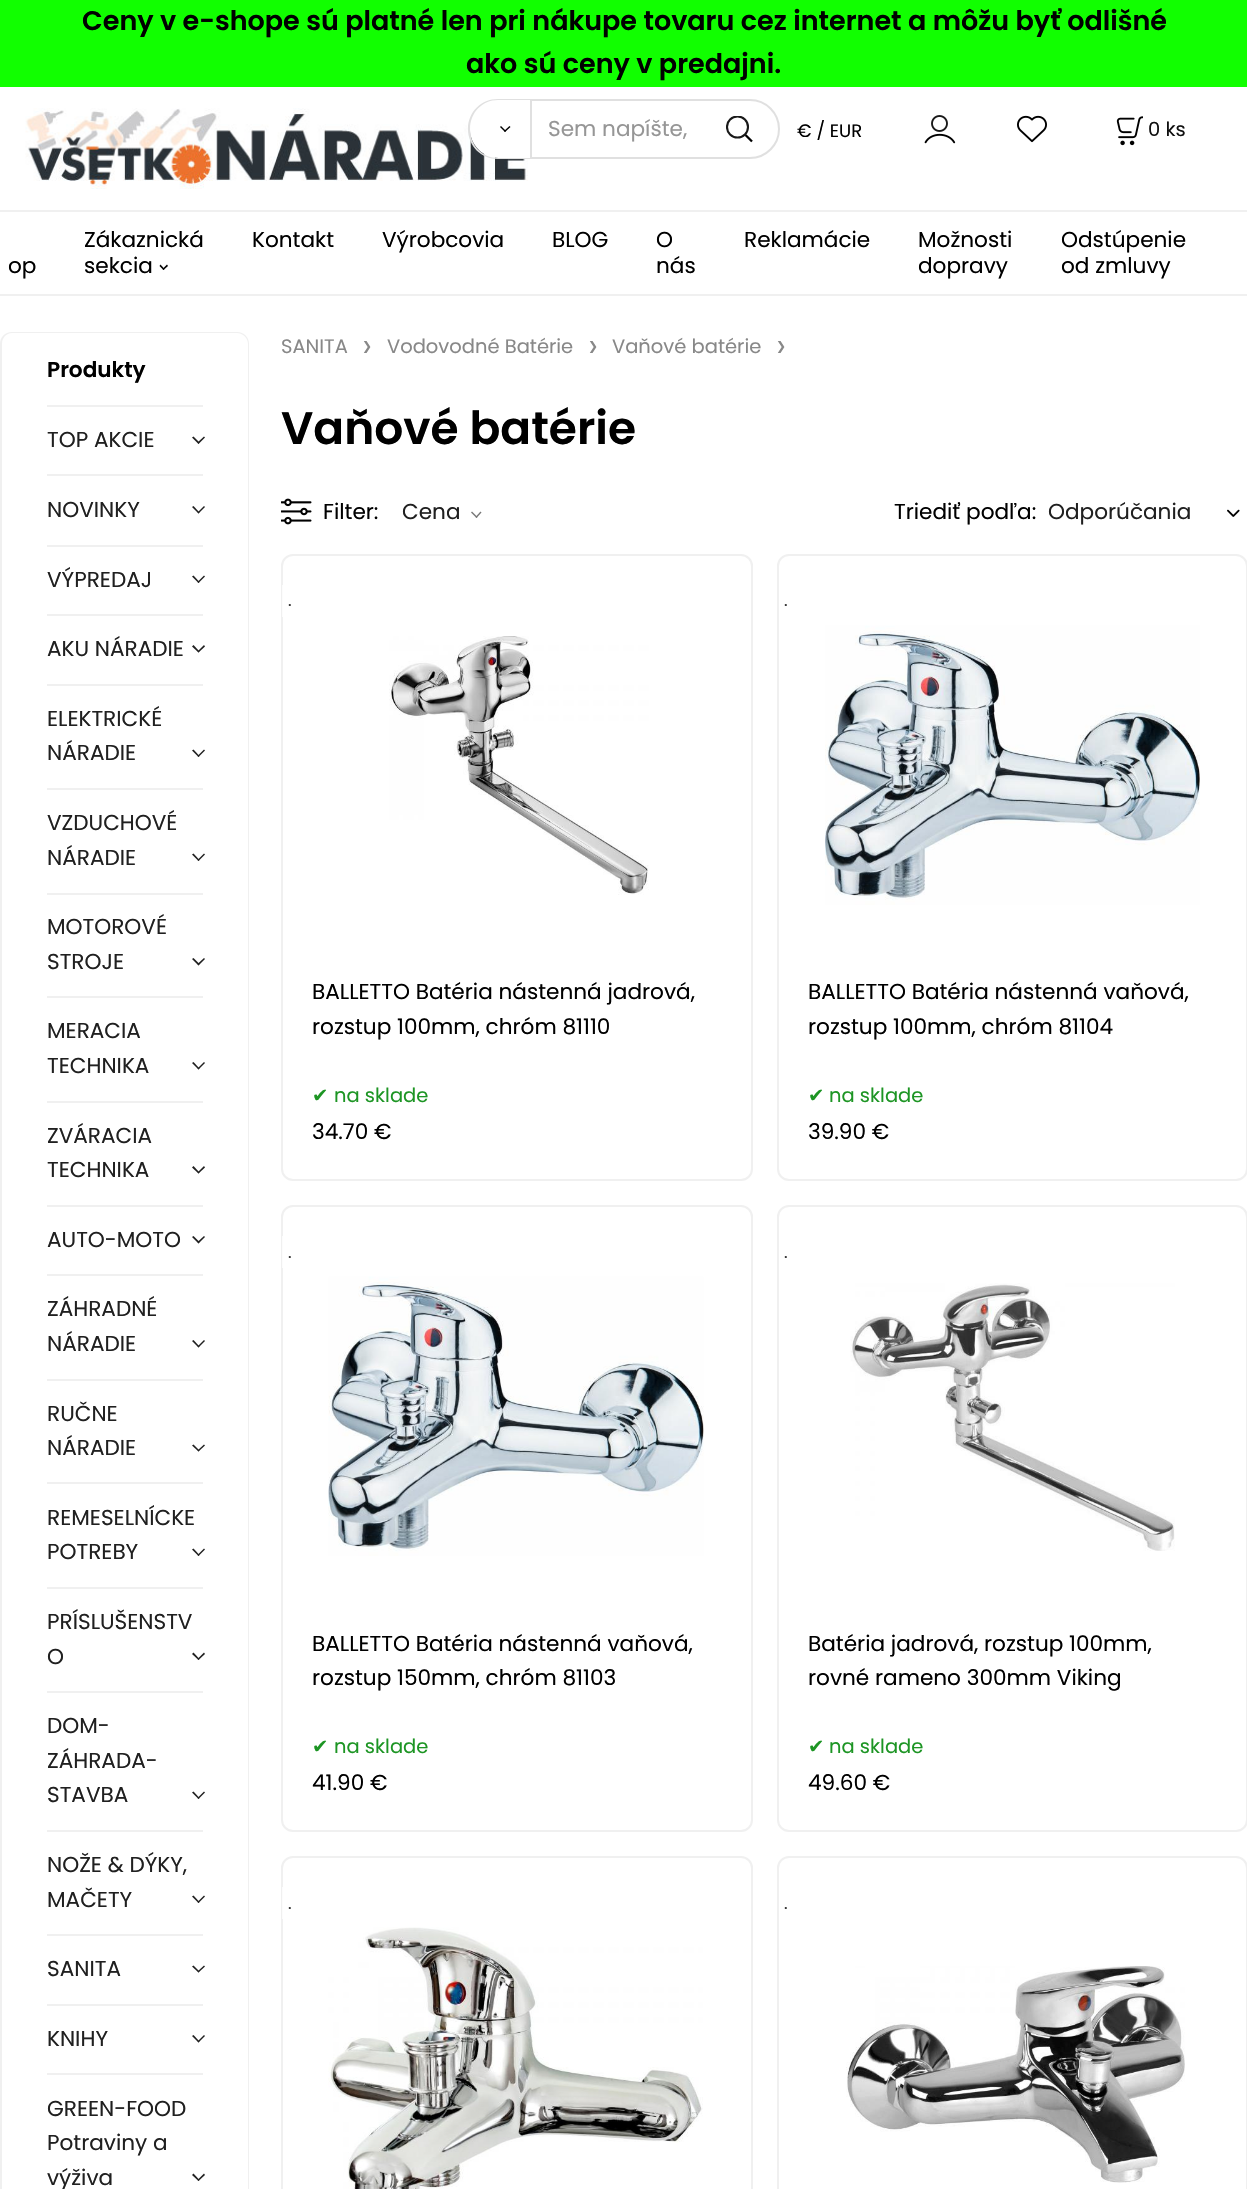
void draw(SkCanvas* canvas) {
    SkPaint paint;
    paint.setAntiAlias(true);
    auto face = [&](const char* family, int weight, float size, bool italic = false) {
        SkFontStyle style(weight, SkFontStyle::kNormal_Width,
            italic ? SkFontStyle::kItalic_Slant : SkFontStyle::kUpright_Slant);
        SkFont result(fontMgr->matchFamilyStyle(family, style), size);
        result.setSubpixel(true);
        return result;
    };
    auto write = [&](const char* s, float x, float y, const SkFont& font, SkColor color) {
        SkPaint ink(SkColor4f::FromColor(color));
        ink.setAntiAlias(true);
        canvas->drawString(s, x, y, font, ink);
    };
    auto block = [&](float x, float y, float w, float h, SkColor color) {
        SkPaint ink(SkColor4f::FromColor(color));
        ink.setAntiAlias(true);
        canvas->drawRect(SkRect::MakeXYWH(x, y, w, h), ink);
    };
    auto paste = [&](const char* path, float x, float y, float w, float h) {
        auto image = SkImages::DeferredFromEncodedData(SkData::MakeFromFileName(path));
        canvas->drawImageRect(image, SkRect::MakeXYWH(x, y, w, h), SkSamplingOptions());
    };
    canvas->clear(SK_ColorWHITE);
    block(0, 0, 1247, 87, SkColorSetRGB(17, 255, 0));
    auto kFont1 = face("Poppins", 600, 27);
    write("Ceny v e-shope sú platné len pri nákupe tovaru cez internet a môžu byť odlišné", 82, 30, kFont1, SK_ColorBLACK);
    write("ako sú ceny v predajni.", 466, 73, kFont1, SK_ColorBLACK);
    paste("pic1.png", 25, 108, 503, 81);
    paint.setColor(SK_ColorWHITE);
    canvas->drawPath(SkPathBuilder().moveTo(498.5f, 101).lineTo(530, 101).lineTo(530, 158).lineTo(498.5f, 158).cubicTo(483, 158, 470, 145, 470, 129.5f).cubicTo(470, 114, 483, 101, 498.5f, 101).close().detach(), paint);
    paint.setColor(SkColorSetRGB(224, 224, 224));
    canvas->drawPath(SkPathBuilder(SkPathFillType::kEvenOdd).moveTo(498, 99).lineTo(530, 99).lineTo(530, 159).lineTo(498, 159).cubicTo(481, 159, 468, 146, 468, 129).cubicTo(468, 112, 481, 99, 498, 99).close().moveTo(498, 100).lineTo(530, 100).lineTo(530, 158).lineTo(498, 158).cubicTo(482, 158, 470, 145, 470, 129).cubicTo(470, 113, 482, 100, 498, 100).close().detach(), paint);
    paint.setColor(SK_ColorBLACK);
    canvas->drawPath(SkPathBuilder().moveTo(504, 131).lineTo(509.5f, 126).lineTo(510.5f, 127).lineTo(505, 132).close().detach(), paint);
    canvas->drawPath(SkPathBuilder().moveTo(500, 127).lineTo(501, 126).lineTo(506, 131).lineTo(505, 132).close().detach(), paint);
    paint.setStyle(SkPaint::kStroke_Style);
    paint.setStrokeWidth(2);
    paint.setColor(SkColorSetRGB(224, 224, 224));
    canvas->drawPath(SkPathBuilder().moveTo(531, 100).lineTo(750, 100).cubicTo(766, 100, 779, 113, 779, 129).cubicTo(779, 145, 766, 158, 750, 158).lineTo(531, 158).close().detach(), paint);
    auto kFont2 = face("Poppins", 400, 21.6f);
    write("Sem napíšte,", 548, 136, kFont2, SkColorSetRGB(150, 150, 150));
    canvas->save();
    canvas->clipRect(SkRect::MakeXYWH(726, 116, 27, 27));
    paint.setStrokeWidth(2.1f);
    paint.setColor(SkColorSetRGB(25, 25, 25));
    canvas->drawCircle(737.5f, 127, 10.5f, paint);
    canvas->restore();
    paint.setStrokeWidth(2.3f);
    paint.setColor(SK_ColorBLACK);
    canvas->drawPath(SkPathBuilder().moveTo(745.5f, 135).lineTo(752, 141.5f).detach(), paint);
    auto kFont3 = face("Poppins", 400, 18);
    write("€ / EUR", 797, 137, kFont3, SK_ColorBLACK);
    paste("pic2.png", 924, 115, 32, 29);
    paste("pic3.png", 1017, 115, 30, 28);
    paste("pic4.png", 1116, 116, 27, 30);
    auto kFont4 = face("Poppins", 400, 19.5f);
    write("0 ks", 1148, 136, kFont4, SkColorSetRGB(16, 16, 16));
    block(0, 210, 1247, 2, SkColorSetRGB(240, 240, 240));
    block(0, 294, 1247, 2, SkColorSetRGB(240, 240, 240));
    write("op", 8, 273, kFont2, SK_ColorBLACK);
    write("Zákaznická", 84, 247, kFont2, SK_ColorBLACK);
    write("sekcia", 84, 273, kFont2, SK_ColorBLACK);
    paint.setStyle(SkPaint::kFill_Style);
    canvas->drawPath(SkPathBuilder().moveTo(162.5f, 269).lineTo(167, 264.5f).lineTo(168, 266).lineTo(163.5f, 270).close().detach(), paint);
    canvas->drawPath(SkPathBuilder().moveTo(159.5f, 266).lineTo(160.5f, 264.5f).lineTo(164.5f, 269).lineTo(163.5f, 270).close().detach(), paint);
    write("Kontakt", 252, 247, kFont2, SK_ColorBLACK);
    write("Výrobcovia", 382, 247, kFont2, SK_ColorBLACK);
    write("BLOG", 552, 247, kFont2, SK_ColorBLACK);
    write("O", 656, 247, kFont2, SK_ColorBLACK);
    write("nás", 656, 273, kFont2, SK_ColorBLACK);
    write("Reklamácie", 744, 247, kFont2, SK_ColorBLACK);
    write("Možnosti", 918, 247, kFont2, SK_ColorBLACK);
    write("dopravy", 918, 273, kFont2, SK_ColorBLACK);
    write("Odstúpenie", 1061, 247, kFont2, SK_ColorBLACK);
    write("od zmluvy", 1061, 273, kFont2, SK_ColorBLACK);
    paint.setColor(SkColorSetRGB(240, 240, 240));
    canvas->drawPath(SkPathBuilder(SkPathFillType::kEvenOdd).moveTo(12, 332).lineTo(237, 332).cubicTo(244, 332, 249, 337, 249, 344).lineTo(249, 405).lineTo(0, 405).lineTo(0, 344).cubicTo(0, 337, 5, 332, 12, 332).close().moveTo(12, 333).lineTo(237, 333).cubicTo(243, 333, 248, 338, 248, 344).lineTo(248, 405).lineTo(2, 405).lineTo(2, 344).cubicTo(2, 338, 6, 333, 12, 333).close().detach(), paint);
    auto kFont5 = face("Poppins", 600, 21.6f);
    write("Produkty", 47, 377, kFont5, SK_ColorBLACK);
    canvas->drawPath(SkPathBuilder(SkPathFillType::kEvenOdd).moveTo(0, 405).lineTo(249, 405).lineTo(249, 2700).cubicTo(249, 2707, 244, 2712, 237, 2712).lineTo(12, 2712).cubicTo(5, 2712, 0, 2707, 0, 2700).close().moveTo(2, 405).lineTo(248, 405).lineTo(248, 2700).cubicTo(248, 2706, 243, 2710, 237, 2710).lineTo(12, 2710).cubicTo(6, 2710, 2, 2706, 2, 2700).close().detach(), paint);
    block(47, 405, 156, 2, SkColorSetRGB(240, 240, 240));
    write("TOP AKCIE", 47, 447, kFont2, SkColorSetRGB(32, 32, 32));
    paint.setColor(SkColorSetRGB(32, 32, 32));
    canvas->drawPath(SkPathBuilder().moveTo(197.5f, 442.5f).lineTo(204, 436.5f).lineTo(205, 437.5f).lineTo(198.5f, 444).close().detach(), paint);
    canvas->drawPath(SkPathBuilder().moveTo(192, 437.5f).lineTo(193.5f, 436.5f).lineTo(199.5f, 442.5f).lineTo(198.5f, 444).close().detach(), paint);
    block(47, 474, 156, 2, SkColorSetRGB(240, 240, 240));
    write("NOVINKY", 47, 517, kFont2, SkColorSetRGB(32, 32, 32));
    canvas->drawPath(SkPathBuilder().moveTo(197.5f, 512.5f).lineTo(204, 506).lineTo(205, 507).lineTo(198.5f, 513.5f).close().detach(), paint);
    canvas->drawPath(SkPathBuilder().moveTo(192, 507).lineTo(193.5f, 506).lineTo(199.5f, 512.5f).lineTo(198.5f, 513.5f).close().detach(), paint);
    block(47, 545, 156, 2, SkColorSetRGB(240, 240, 240));
    write("VÝPREDAJ", 47, 587, kFont2, SkColorSetRGB(32, 32, 32));
    canvas->drawPath(SkPathBuilder().moveTo(197.5f, 582).lineTo(204, 575.5f).lineTo(205, 576.5f).lineTo(198.5f, 583).close().detach(), paint);
    canvas->drawPath(SkPathBuilder().moveTo(192, 576.5f).lineTo(193.5f, 575.5f).lineTo(199.5f, 582).lineTo(198.5f, 583).close().detach(), paint);
    block(47, 614, 156, 2, SkColorSetRGB(240, 240, 240));
    write("AKU NÁRADIE", 47, 656, kFont2, SkColorSetRGB(32, 32, 32));
    canvas->drawPath(SkPathBuilder().moveTo(197.5f, 651.5f).lineTo(204, 645).lineTo(205, 646.5f).lineTo(198.5f, 652.5f).close().detach(), paint);
    canvas->drawPath(SkPathBuilder().moveTo(192, 646.5f).lineTo(193.5f, 645).lineTo(199.5f, 651.5f).lineTo(198.5f, 652.5f).close().detach(), paint);
    block(47, 684, 156, 2, SkColorSetRGB(240, 240, 240));
    write("ELEKTRICKÉ", 47, 726, kFont2, SkColorSetRGB(32, 32, 32));
    write("NÁRADIE", 47, 760, kFont2, SkColorSetRGB(32, 32, 32));
    canvas->drawPath(SkPathBuilder().moveTo(197.5f, 756).lineTo(204, 749.5f).lineTo(205, 750.5f).lineTo(198.5f, 757).close().detach(), paint);
    canvas->drawPath(SkPathBuilder().moveTo(192, 750.5f).lineTo(193.5f, 749.5f).lineTo(199.5f, 756).lineTo(198.5f, 757).close().detach(), paint);
    block(47, 788, 156, 2, SkColorSetRGB(240, 240, 240));
    write("VZDUCHOVÉ", 47, 830, kFont2, SkColorSetRGB(32, 32, 32));
    write("NÁRADIE", 47, 865, kFont2, SkColorSetRGB(32, 32, 32));
    canvas->drawPath(SkPathBuilder().moveTo(197.5f, 860).lineTo(204, 853.5f).lineTo(205, 854.5f).lineTo(198.5f, 861).close().detach(), paint);
    canvas->drawPath(SkPathBuilder().moveTo(192, 854.5f).lineTo(193.5f, 853.5f).lineTo(199.5f, 860).lineTo(198.5f, 861).close().detach(), paint);
    block(47, 893, 156, 2, SkColorSetRGB(240, 240, 240));
    write("MOTOROVÉ", 47, 934, kFont2, SkColorSetRGB(32, 32, 32));
    write("STROJE", 47, 969, kFont2, SkColorSetRGB(32, 32, 32));
    canvas->drawPath(SkPathBuilder().moveTo(197.5f, 964).lineTo(204, 958).lineTo(205, 959).lineTo(198.5f, 965.5f).close().detach(), paint);
    canvas->drawPath(SkPathBuilder().moveTo(192, 959).lineTo(193.5f, 958).lineTo(199.5f, 964).lineTo(198.5f, 965.5f).close().detach(), paint);
    block(47, 996, 156, 2, SkColorSetRGB(240, 240, 240));
    write("MERACIA", 47, 1038, kFont2, SkColorSetRGB(32, 32, 32));
    write("TECHNIKA", 47, 1073, kFont2, SkColorSetRGB(32, 32, 32));
    canvas->drawPath(SkPathBuilder().moveTo(197.5f, 1068.5f).lineTo(204, 1062).lineTo(205, 1063).lineTo(198.5f, 1069.5f).close().detach(), paint);
    canvas->drawPath(SkPathBuilder().moveTo(192, 1063).lineTo(193.5f, 1062).lineTo(199.5f, 1068.5f).lineTo(198.5f, 1069.5f).close().detach(), paint);
    block(47, 1101, 156, 2, SkColorSetRGB(240, 240, 240));
    write("ZVÁRACIA", 47, 1143, kFont2, SkColorSetRGB(32, 32, 32));
    write("TECHNIKA", 47, 1177, kFont2, SkColorSetRGB(32, 32, 32));
    canvas->drawPath(SkPathBuilder().moveTo(197.5f, 1172.5f).lineTo(204, 1166).lineTo(205, 1167.5f).lineTo(198.5f, 1173.5f).close().detach(), paint);
    canvas->drawPath(SkPathBuilder().moveTo(192, 1167.5f).lineTo(193.5f, 1166).lineTo(199.5f, 1172.5f).lineTo(198.5f, 1173.5f).close().detach(), paint);
    block(47, 1205, 156, 2, SkColorSetRGB(240, 240, 240));
    write("AUTO-MOTO", 47, 1247, kFont2, SkColorSetRGB(32, 32, 32));
    canvas->drawPath(SkPathBuilder().moveTo(197.5f, 1242).lineTo(204, 1236).lineTo(205, 1237).lineTo(198.5f, 1243.5f).close().detach(), paint);
    canvas->drawPath(SkPathBuilder().moveTo(192, 1237).lineTo(193.5f, 1236).lineTo(199.5f, 1242).lineTo(198.5f, 1243.5f).close().detach(), paint);
    block(47, 1274, 156, 2, SkColorSetRGB(240, 240, 240));
    write("ZÁHRADNÉ", 47, 1316, kFont2, SkColorSetRGB(32, 32, 32));
    write("NÁRADIE", 47, 1351, kFont2, SkColorSetRGB(32, 32, 32));
    canvas->drawPath(SkPathBuilder().moveTo(197.5f, 1346.5f).lineTo(204, 1340).lineTo(205, 1341).lineTo(198.5f, 1347.5f).close().detach(), paint);
    canvas->drawPath(SkPathBuilder().moveTo(192, 1341).lineTo(193.5f, 1340).lineTo(199.5f, 1346.5f).lineTo(198.5f, 1347.5f).close().detach(), paint);
    block(47, 1379, 156, 2, SkColorSetRGB(240, 240, 240));
    write("RUČNE", 47, 1421, kFont2, SkColorSetRGB(32, 32, 32));
    write("NÁRADIE", 47, 1455, kFont2, SkColorSetRGB(32, 32, 32));
    canvas->drawPath(SkPathBuilder().moveTo(197.5f, 1450.5f).lineTo(204, 1444.5f).lineTo(205, 1445.5f).lineTo(198.5f, 1451.5f).close().detach(), paint);
    canvas->drawPath(SkPathBuilder().moveTo(192, 1445.5f).lineTo(193.5f, 1444.5f).lineTo(199.5f, 1450.5f).lineTo(198.5f, 1451.5f).close().detach(), paint);
    block(47, 1482, 156, 2, SkColorSetRGB(240, 240, 240));
    write("REMESELNÍCKE", 47, 1525, kFont2, SkColorSetRGB(32, 32, 32));
    write("POTREBY", 47, 1559, kFont2, SkColorSetRGB(32, 32, 32));
    canvas->drawPath(SkPathBuilder().moveTo(197.5f, 1555).lineTo(204, 1548.5f).lineTo(205, 1549.5f).lineTo(198.5f, 1556).close().detach(), paint);
    canvas->drawPath(SkPathBuilder().moveTo(192, 1549.5f).lineTo(193.5f, 1548.5f).lineTo(199.5f, 1555).lineTo(198.5f, 1556).close().detach(), paint);
    block(47, 1587, 156, 2, SkColorSetRGB(240, 240, 240));
    write("PRÍSLUŠENSTV", 47, 1629, kFont2, SkColorSetRGB(32, 32, 32));
    write("O", 47, 1664, kFont2, SkColorSetRGB(32, 32, 32));
    canvas->drawPath(SkPathBuilder().moveTo(197.5f, 1659).lineTo(204, 1652.5f).lineTo(205, 1654).lineTo(198.5f, 1660).close().detach(), paint);
    canvas->drawPath(SkPathBuilder().moveTo(192, 1654).lineTo(193.5f, 1652.5f).lineTo(199.5f, 1659).lineTo(198.5f, 1660).close().detach(), paint);
    block(47, 1691, 156, 2, SkColorSetRGB(240, 240, 240));
    write("DOM-", 47, 1733, kFont2, SkColorSetRGB(32, 32, 32));
    write("ZÁHRADA-", 47, 1768, kFont2, SkColorSetRGB(32, 32, 32));
    write("STAVBA", 47, 1802, kFont2, SkColorSetRGB(32, 32, 32));
    canvas->drawPath(SkPathBuilder().moveTo(197.5f, 1798).lineTo(204, 1791.5f).lineTo(205, 1792.5f).lineTo(198.5f, 1799).close().detach(), paint);
    canvas->drawPath(SkPathBuilder().moveTo(192, 1792.5f).lineTo(193.5f, 1791.5f).lineTo(199.5f, 1798).lineTo(198.5f, 1799).close().detach(), paint);
    block(47, 1830, 156, 2, SkColorSetRGB(240, 240, 240));
    write("NOŽE & DÝKY,", 47, 1872, kFont2, SkColorSetRGB(32, 32, 32));
    write("MAČETY", 47, 1907, kFont2, SkColorSetRGB(32, 32, 32));
    canvas->drawPath(SkPathBuilder().moveTo(197.5f, 1902).lineTo(204, 1895.5f).lineTo(205, 1896.5f).lineTo(198.5f, 1903).close().detach(), paint);
    canvas->drawPath(SkPathBuilder().moveTo(192, 1896.5f).lineTo(193.5f, 1895.5f).lineTo(199.5f, 1902).lineTo(198.5f, 1903).close().detach(), paint);
    block(47, 1934, 156, 2, SkColorSetRGB(240, 240, 240));
    write("SANITA", 47, 1976, kFont2, SkColorSetRGB(32, 32, 32));
    canvas->drawPath(SkPathBuilder().moveTo(197.5f, 1971.5f).lineTo(204, 1965.5f).lineTo(205, 1966.5f).lineTo(198.5f, 1972.5f).close().detach(), paint);
    canvas->drawPath(SkPathBuilder().moveTo(192, 1966.5f).lineTo(193.5f, 1965.5f).lineTo(199.5f, 1971.5f).lineTo(198.5f, 1972.5f).close().detach(), paint);
    block(47, 2004, 156, 2, SkColorSetRGB(240, 240, 240));
    write("KNIHY", 47, 2046, kFont2, SkColorSetRGB(32, 32, 32));
    canvas->drawPath(SkPathBuilder().moveTo(197.5f, 2041.5f).lineTo(204, 2035).lineTo(205, 2036).lineTo(198.5f, 2042.5f).close().detach(), paint);
    canvas->drawPath(SkPathBuilder().moveTo(192, 2036).lineTo(193.5f, 2035).lineTo(199.5f, 2041.5f).lineTo(198.5f, 2042.5f).close().detach(), paint);
    block(47, 2073, 156, 2, SkColorSetRGB(240, 240, 240));
    write("GREEN-FOOD", 47, 2116, kFont2, SkColorSetRGB(32, 32, 32));
    write("Potraviny a", 47, 2150, kFont2, SkColorSetRGB(32, 32, 32));
    write("výživa", 47, 2185, kFont2, SkColorSetRGB(32, 32, 32));
    canvas->drawPath(SkPathBuilder().moveTo(197.5f, 2180).lineTo(204, 2173.5f).lineTo(205, 2175).lineTo(198.5f, 2181).close().detach(), paint);
    canvas->drawPath(SkPathBuilder().moveTo(192, 2175).lineTo(193.5f, 2173.5f).lineTo(199.5f, 2180).lineTo(198.5f, 2181).close().detach(), paint);
    write("SANITA", 281, 353, kFont4, SkColorSetRGB(136, 136, 136));
    auto kFont6 = face("DejaVu Sans", 400, 12);
    write("❯", 362, 350, kFont6, SkColorSetRGB(136, 136, 136));
    write("Vodovodné Batérie", 387, 353, kFont4, SkColorSetRGB(136, 136, 136));
    write("❯", 588, 350, kFont6, SkColorSetRGB(136, 136, 136));
    write("Vaňové batérie", 612, 353, kFont4, SkColorSetRGB(136, 136, 136));
    write("❯", 776, 350, kFont6, SkColorSetRGB(136, 136, 136));
    auto kFont7 = face("Poppins", 600, 45.5f);
    write("Vaňové batérie", 281, 444, kFont7, SK_ColorBLACK);
    paste("pic5.png", 281, 498, 31, 27);
    write("Filter:", 323, 519, kFont2, SK_ColorBLACK);
    write("Cena", 402, 519, kFont2, SkColorSetRGB(32, 32, 32));
    paint.setColor(SkColorSetRGB(119, 119, 119));
    canvas->drawPath(SkPathBuilder().moveTo(475.5f, 517).lineTo(480.5f, 511.5f).lineTo(481.5f, 512.5f).lineTo(476.5f, 518).close().detach(), paint);
    canvas->drawPath(SkPathBuilder().moveTo(471, 512.5f).lineTo(472, 511.5f).lineTo(477.5f, 517).lineTo(476.5f, 518).close().detach(), paint);
    write("Triediť podľa:", 894, 519, kFont2, SK_ColorBLACK);
    paste("pic6.png", 1227, 509, 13, 8);
    write("Odporúčania", 1048, 519, kFont2, SkColorSetRGB(32, 32, 32));
    paint.setStyle(SkPaint::kStroke_Style);
    paint.setStrokeWidth(2);
    paint.setColor(SkColorSetRGB(240, 240, 240));
    canvas->drawRoundRect(SkRect::MakeXYWH(282, 555, 470, 625), 11, 11, paint);
    paint.setStyle(SkPaint::kFill_Style);
    paint.setColor(SkColorSetARGB(204, 255, 255, 255));
    canvas->drawPath(SkPathBuilder().moveTo(282, 585).lineTo(296, 585).cubicTo(299.5f, 585, 302, 587.5f, 302, 591).lineTo(302, 611).cubicTo(302, 614.5f, 299.5f, 617, 296, 617).lineTo(282, 617).close().detach(), paint);
    auto kFont8 = face("Poppins", 400, 17);
    write(".", 288, 606, kFont8, SkColorSetRGB(51, 51, 51));
    paste("pic7.png", 389, 636, 260, 259);
    write("BALLETTO Batéria nástenná jadrová,", 312, 999, kFont2, SK_ColorBLACK);
    write("rozstup 100mm, chróm 81110", 312, 1034, kFont2, SK_ColorBLACK);
    auto kFont9 = face("DejaVu Sans", 400, 19.5f);
    write("✔", 312, 1102, kFont9, SkColorSetRGB(29, 149, 36));
    write("na sklade", 334, 1102, kFont4, SkColorSetRGB(29, 149, 36));
    write("34.70 €", 312, 1139, kFont2, SK_ColorBLACK);
    paint.setStyle(SkPaint::kStroke_Style);
    paint.setColor(SkColorSetRGB(240, 240, 240));
    canvas->drawRoundRect(SkRect::MakeXYWH(778, 555, 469, 625), 11, 11, paint);
    write(".", 784, 606, kFont8, SkColorSetRGB(51, 51, 51));
    paste("pic8.png", 825, 625, 375, 280);
    write("BALLETTO Batéria nástenná vaňová,", 808, 999, kFont2, SK_ColorBLACK);
    write("rozstup 100mm, chróm 81104", 808, 1034, kFont2, SK_ColorBLACK);
    write("✔", 808, 1102, kFont9, SkColorSetRGB(29, 149, 36));
    write("na sklade", 829, 1102, kFont4, SkColorSetRGB(29, 149, 36));
    write("39.90 €", 808, 1139, kFont2, SK_ColorBLACK);
    canvas->drawRoundRect(SkRect::MakeXYWH(282, 1206, 470, 625), 11, 11, paint);
    paint.setStyle(SkPaint::kFill_Style);
    paint.setColor(SkColorSetARGB(204, 255, 255, 255));
    canvas->drawPath(SkPathBuilder().moveTo(282, 1236).lineTo(296, 1236).cubicTo(299.5f, 1236, 302, 1238.5f, 302, 1242).lineTo(302, 1262).cubicTo(302, 1265.5f, 299.5f, 1268, 296, 1268).lineTo(282, 1268).close().detach(), paint);
    write(".", 288, 1258, kFont8, SkColorSetRGB(51, 51, 51));
    paste("pic9.png", 328, 1276, 376, 280);
    write("BALLETTO Batéria nástenná vaňová,", 312, 1651, kFont2, SK_ColorBLACK);
    write("rozstup 150mm, chróm 81103", 312, 1685, kFont2, SK_ColorBLACK);
    write("✔", 312, 1753, kFont9, SkColorSetRGB(29, 149, 36));
    write("na sklade", 334, 1753, kFont4, SkColorSetRGB(29, 149, 36));
    write("41.90 €", 312, 1790, kFont2, SK_ColorBLACK);
    paint.setStyle(SkPaint::kStroke_Style);
    paint.setColor(SkColorSetRGB(240, 240, 240));
    canvas->drawRoundRect(SkRect::MakeXYWH(778, 1206, 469, 625), 11, 11, paint);
    write(".", 784, 1258, kFont8, SkColorSetRGB(51, 51, 51));
    paste("pic10.png", 850, 1283, 325, 268);
    write("Batéria jadrová, rozstup 100mm,", 808, 1651, kFont2, SK_ColorBLACK);
    write("rovné rameno 300mm Viking", 808, 1685, kFont2, SK_ColorBLACK);
    write("✔", 808, 1753, kFont9, SkColorSetRGB(29, 149, 36));
    write("na sklade", 829, 1753, kFont4, SkColorSetRGB(29, 149, 36));
    write("49.60 €", 808, 1790, kFont2, SK_ColorBLACK);
    canvas->drawRoundRect(SkRect::MakeXYWH(282, 1857, 470, 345), 11, 11, paint);
    paint.setStyle(SkPaint::kFill_Style);
    paint.setColor(SkColorSetARGB(204, 255, 255, 255));
    canvas->drawPath(SkPathBuilder().moveTo(282, 1887).lineTo(296, 1887).cubicTo(299.5f, 1887, 302, 1889.5f, 302, 1893).lineTo(302, 1913).cubicTo(302, 1916.5f, 299.5f, 1919, 296, 1919).lineTo(282, 1919).close().detach(), paint);
    write(".", 288, 1909, kFont8, SkColorSetRGB(51, 51, 51));
    paste("pic11.png", 328, 1927, 375, 262);
    paint.setStyle(SkPaint::kStroke_Style);
    paint.setColor(SkColorSetRGB(240, 240, 240));
    canvas->drawRoundRect(SkRect::MakeXYWH(778, 1857, 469, 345), 11, 11, paint);
    write(".", 784, 1909, kFont8, SkColorSetRGB(51, 51, 51));
    paste("pic12.png", 846, 1966, 339, 217);
}
